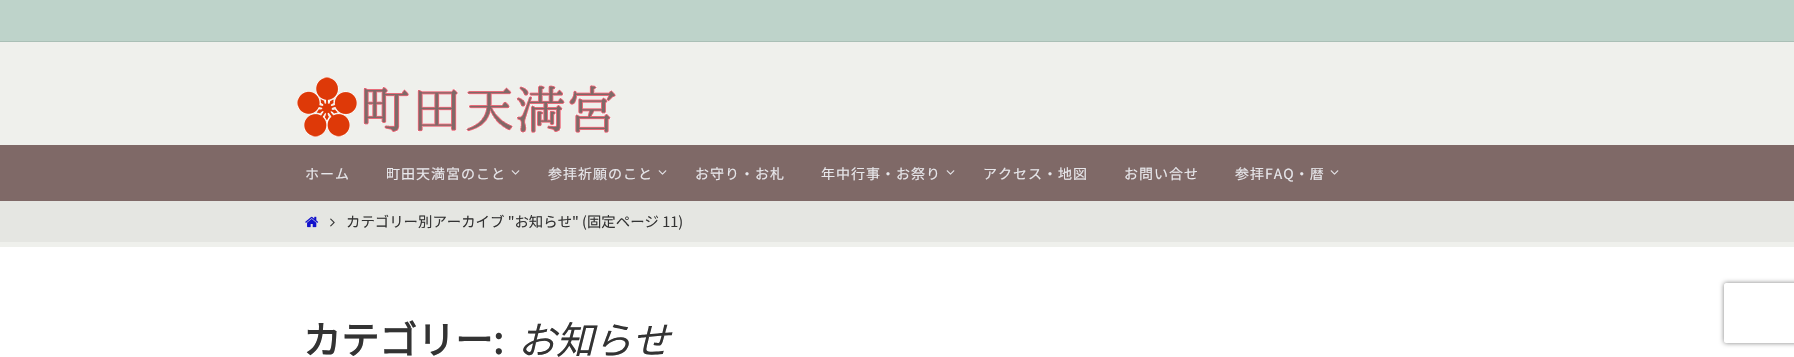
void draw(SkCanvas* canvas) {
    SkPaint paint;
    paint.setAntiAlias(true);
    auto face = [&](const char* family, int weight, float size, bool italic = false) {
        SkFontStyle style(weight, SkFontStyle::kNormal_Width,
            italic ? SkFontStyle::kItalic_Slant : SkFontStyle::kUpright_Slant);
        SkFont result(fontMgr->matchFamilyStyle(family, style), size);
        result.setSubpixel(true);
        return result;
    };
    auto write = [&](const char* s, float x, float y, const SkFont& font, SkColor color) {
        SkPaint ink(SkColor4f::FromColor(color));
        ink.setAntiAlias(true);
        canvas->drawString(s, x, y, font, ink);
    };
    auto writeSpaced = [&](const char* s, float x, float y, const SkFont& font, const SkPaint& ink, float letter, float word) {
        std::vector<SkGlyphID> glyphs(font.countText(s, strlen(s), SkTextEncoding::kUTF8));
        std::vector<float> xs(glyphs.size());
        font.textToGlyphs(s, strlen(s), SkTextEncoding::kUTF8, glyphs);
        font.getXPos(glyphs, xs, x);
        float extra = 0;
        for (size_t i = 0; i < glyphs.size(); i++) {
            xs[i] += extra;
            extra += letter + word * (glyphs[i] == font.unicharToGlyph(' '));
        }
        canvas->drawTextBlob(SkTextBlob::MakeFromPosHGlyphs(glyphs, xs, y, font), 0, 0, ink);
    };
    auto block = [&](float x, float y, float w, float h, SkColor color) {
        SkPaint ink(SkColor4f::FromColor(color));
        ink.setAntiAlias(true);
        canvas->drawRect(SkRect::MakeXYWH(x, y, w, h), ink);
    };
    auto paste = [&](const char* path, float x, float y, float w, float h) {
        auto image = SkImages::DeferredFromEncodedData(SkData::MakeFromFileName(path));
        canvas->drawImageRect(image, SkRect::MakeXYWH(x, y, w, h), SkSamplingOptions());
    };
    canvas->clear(SkColorSetRGB(239, 240, 236));
    block(0, 0, 1794, 41, SkColorSetRGB(190, 211, 202));
    block(0, 41, 1794, 1, SkColorSetRGB(170, 191, 182));
    paste("pic1.png", 297, 77, 319, 60);
    block(0, 145, 1794, 56, SkColorSetRGB(127, 105, 103));
    auto kFont1 = face("Noto Sans JP", 100, 14);
    paint.setColor(SkColorSetRGB(231, 231, 235));
    writeSpaced("ホーム", 305, 179, kFont1, paint, 1, 0);
    writeSpaced("町田天満宮のこと", 386, 179, kFont1, paint, 1, 0);
    paste("pic2.png", 511, 170, 9, 5);
    writeSpaced("参拝祈願のこと", 548, 179, kFont1, paint, 1, 0);
    paste("pic2.png", 658, 170, 9, 5);
    writeSpaced("お守り・お札", 695, 179, kFont1, paint, 1, 0);
    writeSpaced("年中行事・お祭り", 821, 179, kFont1, paint, 1, 0);
    paste("pic2.png", 946, 170, 9, 5);
    writeSpaced("アクセス・地図", 983, 179, kFont1, paint, 1, 0);
    writeSpaced("お問い合せ", 1124, 179, kFont1, paint, 1, 0);
    writeSpaced("参拝FAQ・暦", 1235, 179, kFont1, paint, 1, 0);
    paste("pic2.png", 1330, 170, 9, 5);
    block(0, 201, 1794, 41, SkColorSetRGB(229, 230, 226));
    paste("pic3.png", 305, 216, 14, 12);
    paste("pic4.png", 330, 218, 5, 9);
    auto kFont2 = face("Noto Sans JP", 100, 14.4f);
    write("カテゴリー別アーカイブ \"お知らせ\" (固定ページ 11)", 346, 227, kFont2, SkColorSetRGB(51, 51, 51));
    block(0, 247, 1794, 110, SK_ColorWHITE);
    auto kFont3 = face("Noto Sans JP", 700, 38);
    write("カテゴリー:", 303, 354, kFont3, SkColorSetRGB(51, 51, 51));
    auto kFont4 = face("Noto Sans JP", 100, 38, true);
    write("お知らせ", 518, 354, kFont4, SkColorSetRGB(51, 51, 51));
    canvas->save();
    canvas->clipPath(SkPathBuilder(SkPathFillType::kEvenOdd).moveTo(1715, 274).lineTo(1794, 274).lineTo(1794, 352).lineTo(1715, 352).close().moveTo(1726, 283).lineTo(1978, 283).cubicTo(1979, 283, 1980, 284, 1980, 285).lineTo(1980, 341).cubicTo(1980, 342, 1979, 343, 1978, 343).lineTo(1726, 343).cubicTo(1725, 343, 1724, 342, 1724, 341).lineTo(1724, 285).cubicTo(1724, 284, 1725, 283, 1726, 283).close().detach(), true);
    paint.setColor(SkColorSetRGB(128, 128, 128));
    paint.setMaskFilter(SkMaskFilter::MakeBlur(kNormal_SkBlurStyle, 2.5f));
    canvas->drawRoundRect(SkRect::MakeXYWH(1724, 283, 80, 60), 2, 2, paint);
    paint.setMaskFilter(nullptr);
    canvas->restore();
}
